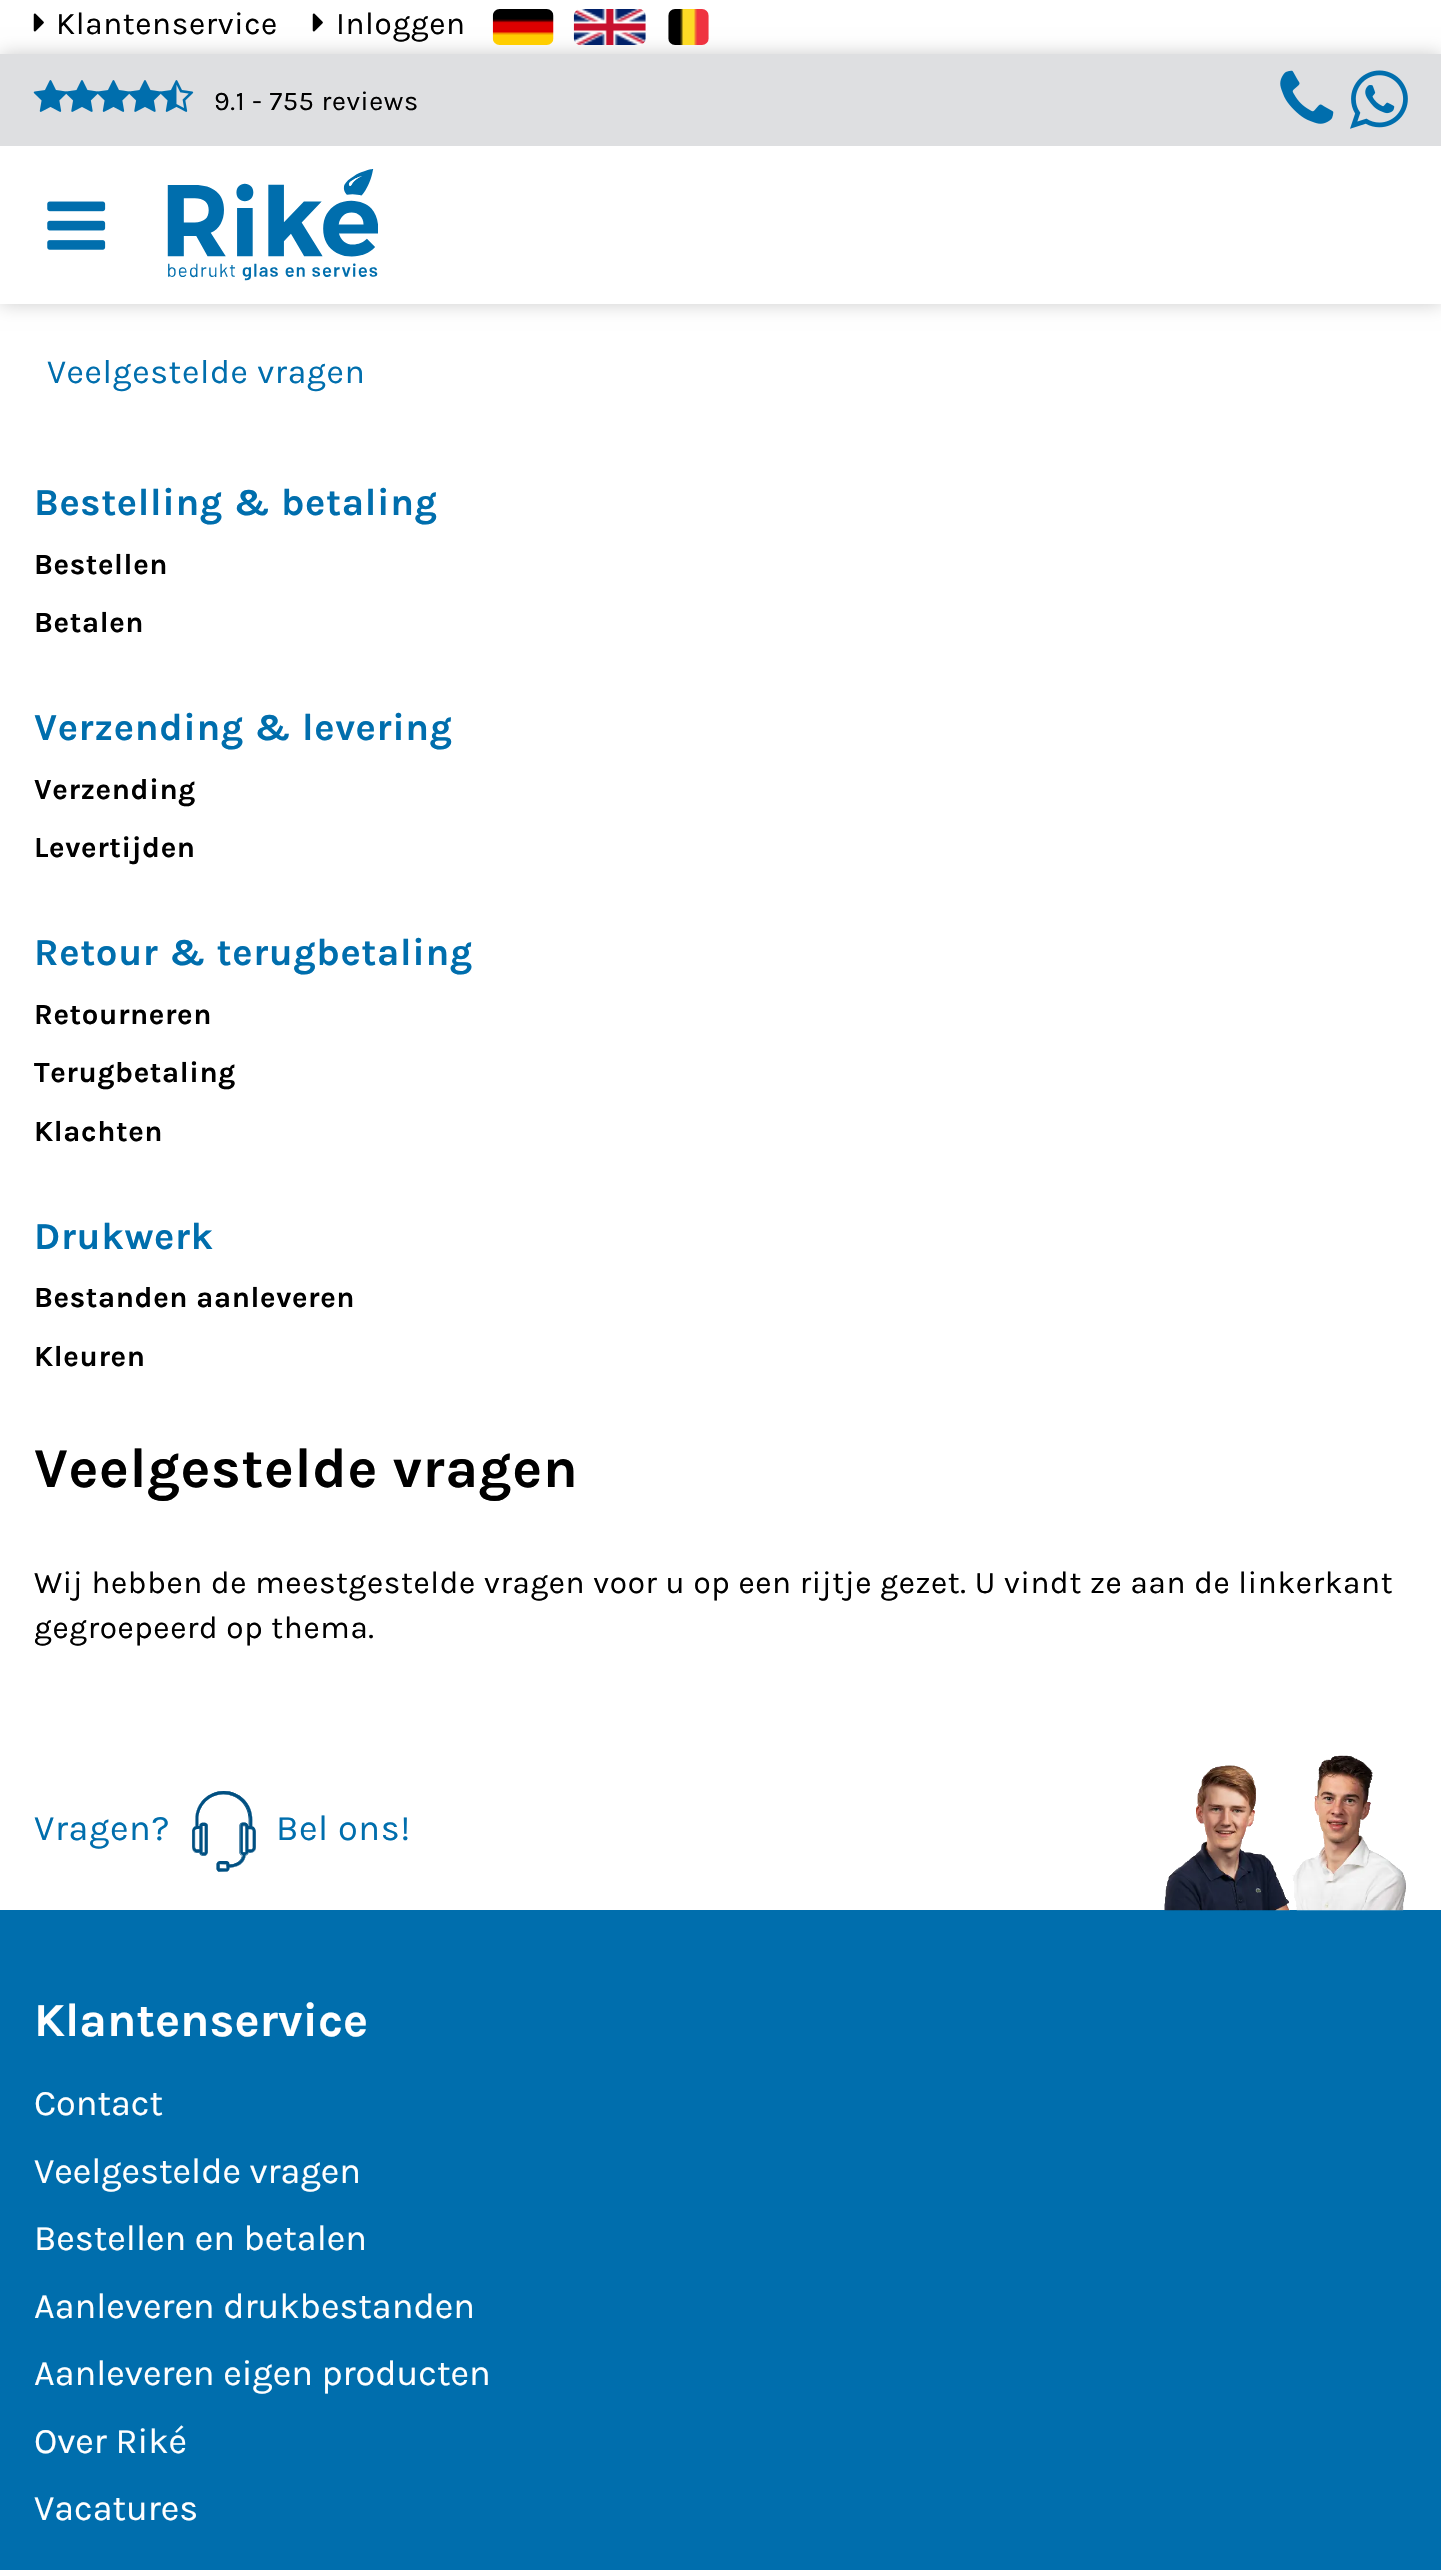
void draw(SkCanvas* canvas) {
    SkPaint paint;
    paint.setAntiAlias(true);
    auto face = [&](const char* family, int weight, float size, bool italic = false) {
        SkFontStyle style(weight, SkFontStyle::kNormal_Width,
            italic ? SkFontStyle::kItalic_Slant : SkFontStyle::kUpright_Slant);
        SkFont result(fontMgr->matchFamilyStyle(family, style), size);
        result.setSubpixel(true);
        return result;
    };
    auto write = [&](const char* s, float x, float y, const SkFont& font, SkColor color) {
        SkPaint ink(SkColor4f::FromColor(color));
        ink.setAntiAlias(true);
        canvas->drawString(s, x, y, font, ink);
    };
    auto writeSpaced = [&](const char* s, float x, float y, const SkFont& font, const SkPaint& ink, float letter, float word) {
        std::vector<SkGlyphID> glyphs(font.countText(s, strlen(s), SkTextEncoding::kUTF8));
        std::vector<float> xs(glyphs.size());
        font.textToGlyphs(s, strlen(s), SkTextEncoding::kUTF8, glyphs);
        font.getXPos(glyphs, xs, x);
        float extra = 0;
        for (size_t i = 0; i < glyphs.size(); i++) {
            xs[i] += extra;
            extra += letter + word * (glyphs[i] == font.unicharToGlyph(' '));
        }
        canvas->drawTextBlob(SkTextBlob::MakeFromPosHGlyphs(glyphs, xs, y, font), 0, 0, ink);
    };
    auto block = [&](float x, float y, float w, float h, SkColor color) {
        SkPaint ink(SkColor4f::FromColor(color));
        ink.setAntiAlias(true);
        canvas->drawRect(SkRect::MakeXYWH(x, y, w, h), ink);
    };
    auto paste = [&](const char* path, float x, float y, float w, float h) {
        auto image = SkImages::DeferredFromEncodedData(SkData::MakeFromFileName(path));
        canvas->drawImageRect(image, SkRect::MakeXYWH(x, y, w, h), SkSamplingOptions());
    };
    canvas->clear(SK_ColorWHITE);
    paint.setColor(SkColorSetARGB(51, 0, 0, 0));
    paint.setMaskFilter(SkMaskFilter::MakeBlur(kNormal_SkBlurStyle, 9));
    canvas->drawRect(SkRect::MakeXYWH(0, 54, 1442, 250), paint);
    paint.setMaskFilter(nullptr);
    paste("pic1.png", 33, 13, 11, 19);
    auto kFont1 = face("Karla", 400, 31.5f);
    paint.setColor(SK_ColorBLACK);
    writeSpaced("Klantenservice", 56, 34, kFont1, paint, 0.63f, 0);
    paste("pic1.png", 312, 13, 11, 19);
    writeSpaced("Inloggen", 336, 34, kFont1, paint, 0.63f, 0);
    paste("pic2.png", 492, 9, 62, 36);
    paste("pic3.png", 573, 9, 73, 36);
    paste("pic4.png", 668, 9, 41, 36);
    block(0, 146, 1441, 158, SK_ColorWHITE);
    block(0, 54, 1441, 92, SkColorSetRGB(222, 223, 225));
    paste("pic5.png", 33, 80, 34, 32);
    paste("pic6.png", 65, 80, 34, 32);
    paste("pic7.png", 97, 80, 33, 32);
    paste("pic6.png", 128, 80, 34, 32);
    paste("pic8.png", 160, 80, 34, 32);
    auto kFont2 = face("Karla", 400, 27);
    writeSpaced("9.1 - 755 reviews", 214, 110, kFont2, paint, 0.63f, 0);
    paste("pic9.png", 1280, 70, 54, 54);
    paste("pic10.png", 1350, 70, 58, 59);
    paste("pic11.png", 47, 201, 59, 49);
    paste("pic12.png", 167, 169, 211, 112);
    auto kFont3 = face("Karla", 400, 33.75f);
    paint.setColor(SkColorSetRGB(0, 110, 173));
    writeSpaced("Veelgestelde vragen", 47, 383, kFont3, paint, 0.63f, 0);
    auto kFont4 = face("Karla", 700, 38.25f);
    writeSpaced("Bestelling & betaling", 34, 515, kFont4, paint, 0.63f, 0);
    auto kFont5 = face("Karla", 700, 29.25f);
    paint.setColor(SK_ColorBLACK);
    writeSpaced("Bestellen", 34, 574, kFont5, paint, 0.63f, 0);
    writeSpaced("Betalen", 34, 632, kFont5, paint, 0.63f, 0);
    paint.setColor(SkColorSetRGB(0, 110, 173));
    writeSpaced("Verzending & levering", 34, 740, kFont4, paint, 0.63f, 0);
    paint.setColor(SK_ColorBLACK);
    writeSpaced("Verzending", 34, 799, kFont5, paint, 0.63f, 0);
    writeSpaced("Levertijden", 34, 857, kFont5, paint, 0.63f, 0);
    paint.setColor(SkColorSetRGB(0, 110, 173));
    writeSpaced("Retour & terugbetaling", 34, 965, kFont4, paint, 0.63f, 0);
    paint.setColor(SK_ColorBLACK);
    writeSpaced("Retourneren", 34, 1024, kFont5, paint, 0.63f, 0);
    writeSpaced("Terugbetaling", 34, 1082, kFont5, paint, 0.63f, 0);
    writeSpaced("Klachten", 34, 1141, kFont5, paint, 0.63f, 0);
    paint.setColor(SkColorSetRGB(0, 110, 173));
    writeSpaced("Drukwerk", 34, 1249, kFont4, paint, 0.63f, 0);
    paint.setColor(SK_ColorBLACK);
    writeSpaced("Bestanden aanleveren", 34, 1307, kFont5, paint, 0.63f, 0);
    writeSpaced("Kleuren", 34, 1366, kFont5, paint, 0.63f, 0);
    auto kFont6 = face("Karla", 700, 56.25f);
    writeSpaced("Veelgestelde vragen", 34, 1487, kFont6, paint, 0.63f, 0);
    writeSpaced("Wij hebben de meestgestelde vragen voor u op een rijtje gezet. U vindt ze aan de linkerkant", 34, 1593, kFont1, paint, 0.63f, 0);
    writeSpaced("gegroepeerd op thema.", 34, 1638, kFont1, paint, 0.63f, 0);
    auto kFont7 = face("Karla", 400, 36);
    paint.setColor(SkColorSetRGB(0, 110, 173));
    writeSpaced("Vragen?", 34, 1840, kFont7, paint, 0.63f, 0);
    paste("pic13.png", 192, 1791, 64, 81);
    writeSpaced("Bel ons!", 276, 1840, kFont7, paint, 0.63f, 0);
    block(0, 1910, 1441, 660, SkColorSetRGB(0, 110, 173));
    paste("pic14.png", 1164, 1755, 242, 156);
    auto kFont8 = face("Karla", 700, 47.25f);
    write("Klantenservice", 34, 2036, kFont8, SK_ColorWHITE);
    write("Contact", 34, 2115, kFont7, SK_ColorWHITE);
    write("Veelgestelde vragen", 34, 2183, kFont7, SK_ColorWHITE);
    write("Bestellen en betalen", 34, 2250, kFont7, SK_ColorWHITE);
    write("Aanleveren drukbestanden", 34, 2318, kFont7, SK_ColorWHITE);
    write("Aanleveren eigen producten", 34, 2385, kFont7, SK_ColorWHITE);
    write("Over Riké", 34, 2453, kFont7, SK_ColorWHITE);
    write("Vacatures", 34, 2520, kFont7, SK_ColorWHITE);
}
